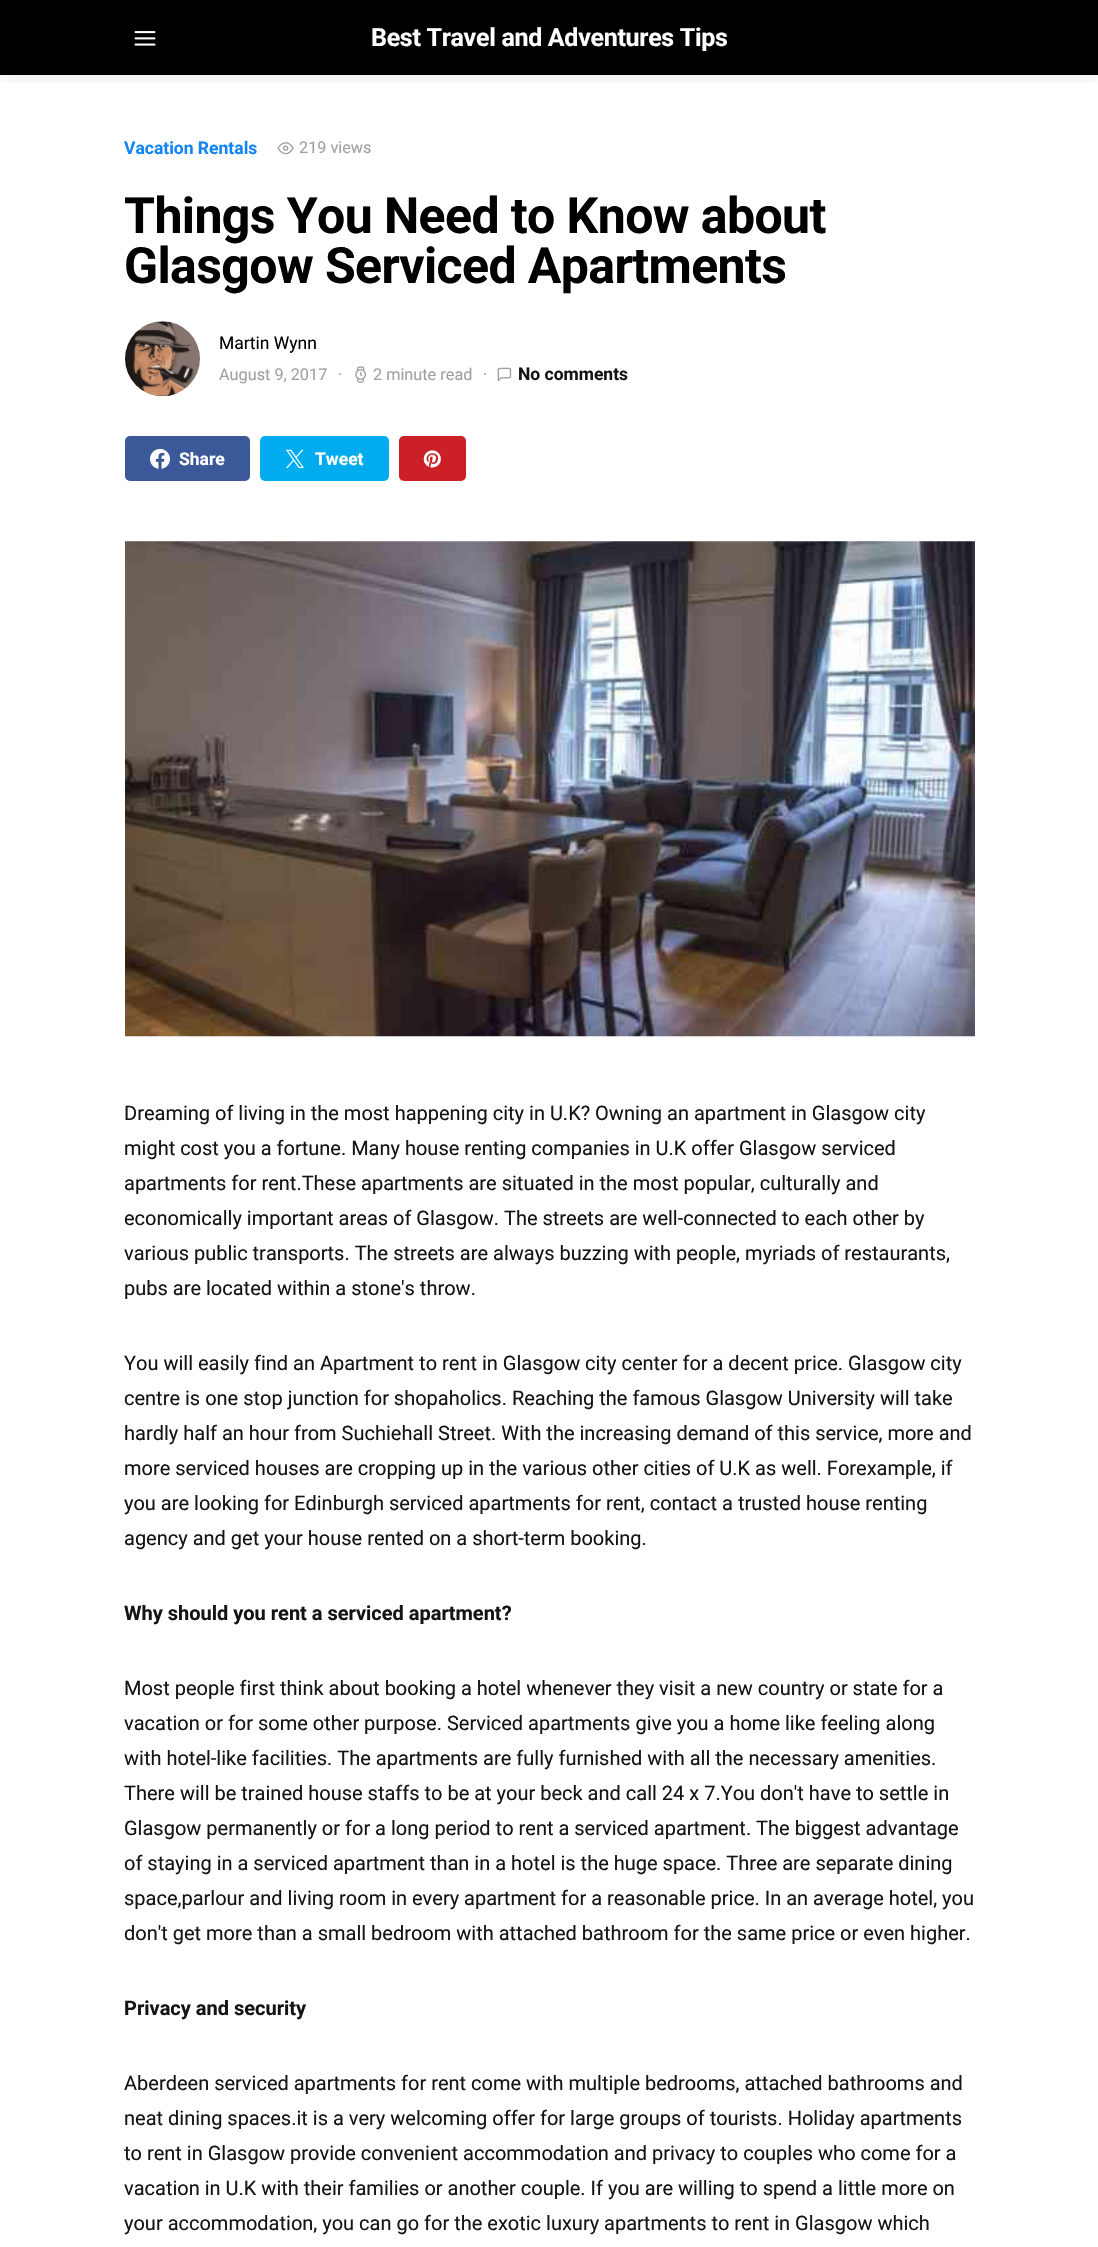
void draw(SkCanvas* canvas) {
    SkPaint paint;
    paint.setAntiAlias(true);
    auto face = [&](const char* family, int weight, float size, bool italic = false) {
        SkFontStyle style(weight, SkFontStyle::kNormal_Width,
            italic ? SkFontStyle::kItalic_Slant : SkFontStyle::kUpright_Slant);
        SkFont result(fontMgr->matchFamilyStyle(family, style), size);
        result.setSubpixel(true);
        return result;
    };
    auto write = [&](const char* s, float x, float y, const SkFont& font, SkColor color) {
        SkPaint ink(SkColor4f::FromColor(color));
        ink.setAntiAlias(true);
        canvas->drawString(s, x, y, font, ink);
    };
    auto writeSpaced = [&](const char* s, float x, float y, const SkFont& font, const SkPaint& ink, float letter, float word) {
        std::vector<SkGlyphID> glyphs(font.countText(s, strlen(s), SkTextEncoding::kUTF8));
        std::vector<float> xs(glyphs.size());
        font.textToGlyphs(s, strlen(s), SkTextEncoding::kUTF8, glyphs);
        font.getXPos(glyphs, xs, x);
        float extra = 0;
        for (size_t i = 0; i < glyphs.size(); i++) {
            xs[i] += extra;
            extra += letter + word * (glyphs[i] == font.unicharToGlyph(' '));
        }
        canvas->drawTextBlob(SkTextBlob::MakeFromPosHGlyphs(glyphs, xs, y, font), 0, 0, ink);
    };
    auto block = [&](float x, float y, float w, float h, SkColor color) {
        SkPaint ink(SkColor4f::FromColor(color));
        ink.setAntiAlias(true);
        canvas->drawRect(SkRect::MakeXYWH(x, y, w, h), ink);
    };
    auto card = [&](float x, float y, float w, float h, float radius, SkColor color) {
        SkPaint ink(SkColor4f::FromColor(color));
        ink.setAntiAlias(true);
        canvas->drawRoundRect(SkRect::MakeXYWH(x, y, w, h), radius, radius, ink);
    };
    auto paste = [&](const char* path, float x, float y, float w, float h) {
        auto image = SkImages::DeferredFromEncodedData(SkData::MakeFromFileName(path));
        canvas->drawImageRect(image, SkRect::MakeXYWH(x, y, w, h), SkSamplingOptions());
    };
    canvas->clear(SK_ColorWHITE);
    block(0, 0, 1098, 75, SK_ColorBLACK);
    canvas->save();
    canvas->clipRect(SkRect::MakeXYWH(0, 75, 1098, 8));
    paint.setColor(SkColorSetARGB(26, 0, 0, 0));
    paint.setMaskFilter(SkMaskFilter::MakeBlur(kNormal_SkBlurStyle, 10));
    canvas->drawRect(SkRect::MakeXYWH(0, 0, 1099, 75), paint);
    paint.setMaskFilter(nullptr);
    canvas->restore();
    paste("pic1.png", 134, 31, 22, 15);
    auto kFont1 = face("Roboto", 700, 25);
    paint.setColor(SK_ColorWHITE);
    writeSpaced("Best Travel and Adventures Tips", 371, 46, kFont1, paint, -0.3f, 0);
    auto kFont2 = face("Roboto", 700, 17.5f);
    write("Vacation Rentals", 124, 154, kFont2, SkColorSetRGB(19, 132, 245));
    paste("pic2.png", 277, 142, 17, 13);
    auto kFont3 = face("Roboto", 400, 16.25f);
    write("219 views", 299, 153, kFont3, SkColorSetRGB(160, 160, 160));
    auto kFont4 = face("Roboto", 700, 50);
    paint.setColor(SK_ColorBLACK);
    writeSpaced("Things You Need to Know about", 124, 233, kFont4, paint, -0.6f, 0);
    writeSpaced("Glasgow Serviced Apartments", 124, 283, kFont4, paint, -0.6f, 0);
    paste("pic3.png", 125, 321, 75, 76);
    auto kFont5 = face("Roboto", 400, 17.5f);
    write("Martin Wynn", 219, 349, kFont5, SK_ColorBLACK);
    write("August 9, 2017", 219, 380, kFont3, SkColorSetRGB(160, 160, 160));
    write("·", 338, 380, kFont3, SkColorSetRGB(160, 160, 160));
    paste("pic4.png", 355, 366, 11, 17);
    write("2 minute read", 373, 380, kFont3, SkColorSetRGB(160, 160, 160));
    write("·", 483, 380, kFont3, SkColorSetRGB(160, 160, 160));
    paste("pic5.png", 497, 367, 15, 15);
    write("No comments", 518, 380, kFont2, SkColorSetRGB(18, 20, 22));
    card(125, 436, 125, 45, 5, SkColorSetRGB(59, 89, 152));
    paste("pic6.png", 150, 448, 20, 21);
    write("Share", 179, 465, kFont2, SK_ColorWHITE);
    card(260, 436, 129, 45, 5, SkColorSetRGB(0, 172, 237));
    paste("pic7.png", 285, 449, 19, 20);
    write("Tweet", 315, 465, kFont2, SK_ColorWHITE);
    card(399, 436, 67, 45, 5, SkColorSetRGB(203, 32, 39));
    paste("pic8.png", 423, 450, 18, 18);
    paste("pic9.png", 125, 541, 850, 496);
    auto kFont6 = face("Roboto", 400, 20);
    write("Dreaming of living in the most happening city in U.K? Owning an apartment in Glasgow city", 124, 1120, kFont6, SkColorSetRGB(18, 20, 22));
    write("might cost you a fortune. Many house renting companies in U.K offer Glasgow serviced", 124, 1155, kFont6, SkColorSetRGB(18, 20, 22));
    write("apartments for rent.These apartments are situated in the most popular, culturally and", 124, 1190, kFont6, SkColorSetRGB(18, 20, 22));
    write("economically important areas of Glasgow. The streets are well-connected to each other by", 124, 1225, kFont6, SkColorSetRGB(18, 20, 22));
    write("various public transports. The streets are always buzzing with people, myriads of restaurants,", 124, 1260, kFont6, SkColorSetRGB(18, 20, 22));
    write("pubs are located within a stone's throw.", 124, 1295, kFont6, SkColorSetRGB(18, 20, 22));
    write("You will easily find an Apartment to rent in Glasgow city center for a decent price. Glasgow city", 124, 1370, kFont6, SkColorSetRGB(18, 20, 22));
    write("centre is one stop junction for shopaholics. Reaching the famous Glasgow University will take", 124, 1405, kFont6, SkColorSetRGB(18, 20, 22));
    write("hardly half an hour from Suchiehall Street. With the increasing demand of this service, more and", 124, 1440, kFont6, SkColorSetRGB(18, 20, 22));
    write("more serviced houses are cropping up in the various other cities of U.K as well. Forexample, if", 124, 1475, kFont6, SkColorSetRGB(18, 20, 22));
    write("you are looking for Edinburgh serviced apartments for rent, contact a trusted house renting", 124, 1510, kFont6, SkColorSetRGB(18, 20, 22));
    write("agency and get your house rented on a short-term booking.", 124, 1545, kFont6, SkColorSetRGB(18, 20, 22));
    auto kFont7 = face("Roboto", 700, 20);
    write("Why should you rent a serviced apartment?", 124, 1620, kFont7, SkColorSetRGB(18, 20, 22));
    write("Most people first think about booking a hotel whenever they visit a new country or state for a", 124, 1695, kFont6, SkColorSetRGB(18, 20, 22));
    write("vacation or for some other purpose. Serviced apartments give you a home like feeling along", 124, 1730, kFont6, SkColorSetRGB(18, 20, 22));
    write("with hotel-like facilities. The apartments are fully furnished with all the necessary amenities.", 124, 1765, kFont6, SkColorSetRGB(18, 20, 22));
    write("There will be trained house staffs to be at your beck and call 24 x 7.You don't have to settle in", 124, 1800, kFont6, SkColorSetRGB(18, 20, 22));
    write("Glasgow permanently or for a long period to rent a serviced apartment. The biggest advantage", 124, 1835, kFont6, SkColorSetRGB(18, 20, 22));
    write("of staying in a serviced apartment than in a hotel is the huge space. Three are separate dining", 124, 1870, kFont6, SkColorSetRGB(18, 20, 22));
    write("space,parlour and living room in every apartment for a reasonable price. In an average hotel, you", 124, 1905, kFont6, SkColorSetRGB(18, 20, 22));
    write("don't get more than a small bedroom with attached bathroom for the same price or even higher.", 124, 1940, kFont6, SkColorSetRGB(18, 20, 22));
    write("Privacy and security", 124, 2015, kFont7, SkColorSetRGB(18, 20, 22));
    write("Aberdeen serviced apartments for rent come with multiple bedrooms, attached bathrooms and", 124, 2090, kFont6, SkColorSetRGB(18, 20, 22));
    write("neat dining spaces.it is a very welcoming offer for large groups of tourists. Holiday apartments", 124, 2125, kFont6, SkColorSetRGB(18, 20, 22));
    write("to rent in Glasgow provide convenient accommodation and privacy to couples who come for a", 124, 2160, kFont6, SkColorSetRGB(18, 20, 22));
    write("vacation in U.K with their families or another couple. If you are willing to spend a little more on", 124, 2195, kFont6, SkColorSetRGB(18, 20, 22));
    write("your accommodation, you can go for the exotic luxury apartments to rent in Glasgow which", 124, 2230, kFont6, SkColorSetRGB(18, 20, 22));
}
